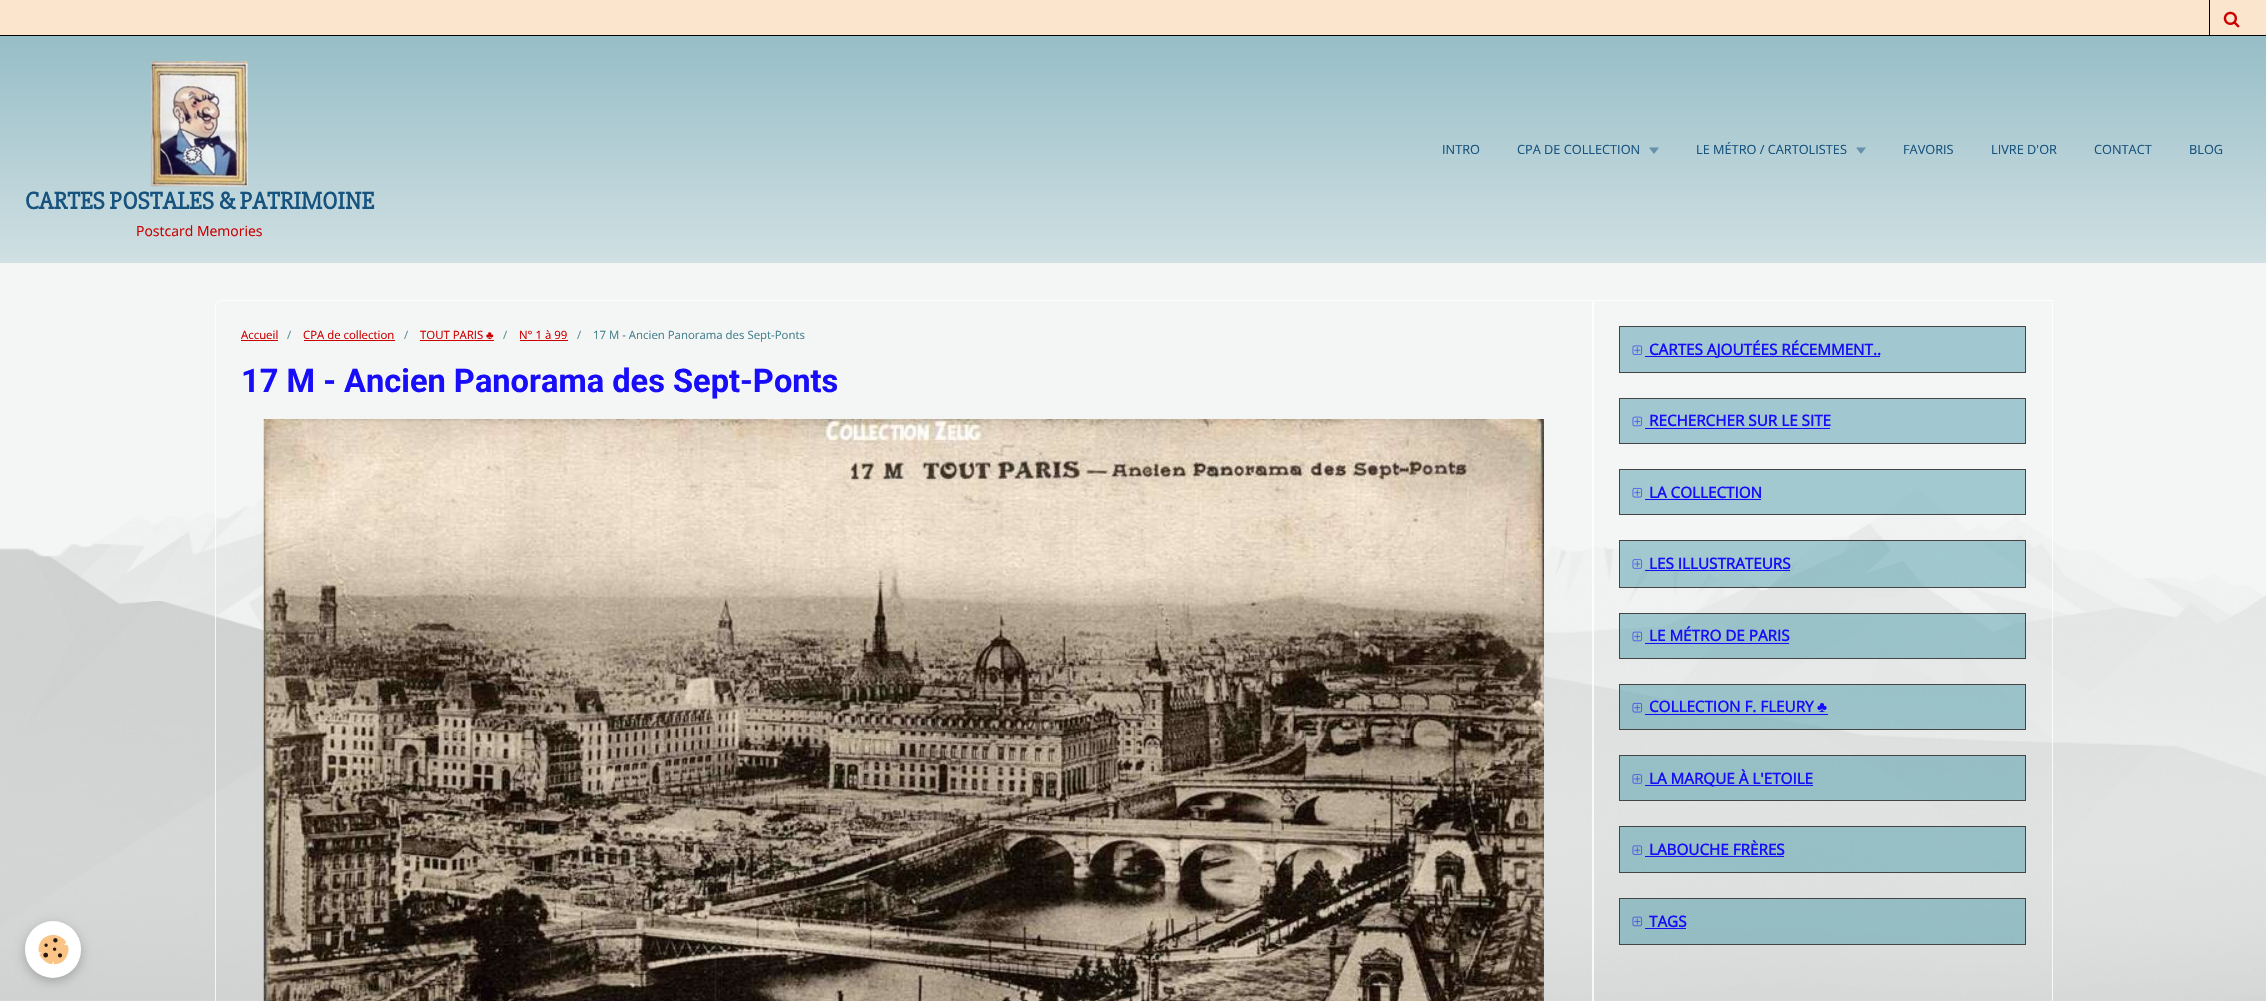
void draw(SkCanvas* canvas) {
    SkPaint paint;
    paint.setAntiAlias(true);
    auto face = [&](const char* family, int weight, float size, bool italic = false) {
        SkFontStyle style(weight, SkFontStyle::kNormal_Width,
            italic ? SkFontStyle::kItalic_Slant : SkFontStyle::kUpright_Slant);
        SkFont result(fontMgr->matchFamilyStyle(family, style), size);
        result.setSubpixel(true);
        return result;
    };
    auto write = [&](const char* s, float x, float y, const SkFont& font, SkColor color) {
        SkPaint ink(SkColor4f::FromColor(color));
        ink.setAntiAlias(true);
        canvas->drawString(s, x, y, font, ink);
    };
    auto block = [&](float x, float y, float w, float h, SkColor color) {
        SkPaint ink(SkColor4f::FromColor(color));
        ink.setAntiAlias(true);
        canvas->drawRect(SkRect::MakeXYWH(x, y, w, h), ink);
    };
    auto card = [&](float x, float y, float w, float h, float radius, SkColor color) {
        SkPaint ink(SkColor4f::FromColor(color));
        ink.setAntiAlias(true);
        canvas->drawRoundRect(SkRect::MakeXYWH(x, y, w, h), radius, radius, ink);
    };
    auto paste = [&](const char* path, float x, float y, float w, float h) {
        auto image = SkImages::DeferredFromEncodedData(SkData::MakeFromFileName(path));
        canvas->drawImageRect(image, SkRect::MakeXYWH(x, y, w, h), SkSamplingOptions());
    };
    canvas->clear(SkColorSetRGB(244, 245, 245));
    paste("pic1.png", 0, 488, 2266, 513);
    {
        const SkColor colors[] = {SkColorSetRGB(141, 184, 194), SkColorSetRGB(208, 224, 227)};
        const float stops[] = {0, 1};
        const SkPoint ends[] = {{1133, 0}, {1133, 263}};
        paint.setShader(SkGradientShader::MakeLinear(ends, colors, stops, 2, SkTileMode::kClamp));
        paint.setAlpha(255);
    }
    canvas->drawRect(SkRect::MakeXYWH(0, 36, 2266, 227), paint);
    block(0, 0, 2266, 35, SkColorSetRGB(252, 229, 205));
    block(0, 35, 2266, 1, SK_ColorBLACK);
    block(2209, 0, 1, 35, SK_ColorBLACK);
    paste("pic2.png", 2223, 11, 17, 17);
    auto kFont1 = face("Open Sans", 400, 12.75f);
    write("INTRO", 1442, 154, kFont1, SkColorSetRGB(22, 83, 126));
    write("CPA DE COLLECTION", 1517, 154, kFont1, SkColorSetRGB(22, 83, 126));
    paint.setShader(nullptr);
    paint.setColor(SkColorSetRGB(101, 145, 170));
    canvas->drawPath(SkPathBuilder().moveTo(1649, 147.5f).lineTo(1659, 147.5f).lineTo(1654, 154).close().detach(), paint);
    write("LE MÉTRO / CARTOLISTES", 1696, 154, kFont1, SkColorSetRGB(22, 83, 126));
    canvas->drawPath(SkPathBuilder().moveTo(1856, 147.5f).lineTo(1866, 147.5f).lineTo(1861, 154).close().detach(), paint);
    write("FAVORIS", 1903, 154, kFont1, SkColorSetRGB(22, 83, 126));
    write("LIVRE D'OR", 1991, 154, kFont1, SkColorSetRGB(22, 83, 126));
    write("CONTACT", 2094, 154, kFont1, SkColorSetRGB(22, 83, 126));
    write("BLOG", 2189, 154, kFont1, SkColorSetRGB(22, 83, 126));
    paste("pic3.png", 150, 61, 98, 126);
    auto kFont2 = face("Slabo 27px", 700, 24.75f);
    write("CARTES POSTALES & PATRIMOINE", 25, 209, kFont2, SkColorSetRGB(22, 83, 126));
    auto kFont3 = face("Open Sans", 400, 14);
    write("Postcard Memories", 136, 236, kFont3, SkColorSetRGB(204, 0, 0));
    paint.setStyle(SkPaint::kStroke_Style);
    paint.setStrokeWidth(1);
    paint.setColor(SkColorSetARGB(204, 255, 255, 255));
    canvas->drawPath(SkPathBuilder().moveTo(221, 300.5f).lineTo(1592.5f, 300.5f).lineTo(1592.5f, 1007.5f).lineTo(215.5f, 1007.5f).lineTo(215.5f, 306).cubicTo(215.5f, 303, 218, 300.5f, 221, 300.5f).close().detach(), paint);
    auto kFont4 = face("Open Sans", 400, 11.4f);
    write("Accueil", 241, 339, kFont4, SkColorSetRGB(204, 0, 0));
    block(241, 340, 37, 1, SkColorSetRGB(204, 0, 0));
    write("/", 287, 339, kFont4, SkColorSetRGB(88, 142, 153));
    write("CPA de collection", 303, 339, kFont4, SkColorSetRGB(204, 0, 0));
    block(304, 340, 91, 1, SkColorSetRGB(204, 0, 0));
    write("/", 404, 339, kFont4, SkColorSetRGB(88, 142, 153));
    write("TOUT PARIS", 420, 339, kFont4, SkColorSetRGB(204, 0, 0));
    auto kFont5 = face("Liberation Serif", 400, 11.4f);
    write("♣", 486, 339, kFont5, SkColorSetRGB(204, 0, 0));
    block(420, 340, 74, 1, SkColorSetRGB(204, 0, 0));
    write("/", 503, 339, kFont4, SkColorSetRGB(88, 142, 153));
    write("N° 1 à 99", 519, 339, kFont4, SkColorSetRGB(204, 0, 0));
    block(520, 340, 48, 1, SkColorSetRGB(204, 0, 0));
    write("/", 577, 339, kFont4, SkColorSetRGB(88, 142, 153));
    write("17 M - Ancien Panorama des Sept-Ponts", 593, 339, kFont4, SkColorSetRGB(69, 129, 142));
    auto kFont6 = face("Roboto", 700, 32.6f);
    write("17 M - Ancien Panorama des Sept-Ponts", 241, 392, kFont6, SkColorSetRGB(24, 13, 248));
    paste("pic4.png", 263, 419, 1281, 582);
    canvas->drawRect(SkRect::MakeXYWH(1593.5f, 300.5f, 459, 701), paint);
    paint.setStyle(SkPaint::kFill_Style);
    paint.setColor(SkColorSetRGB(161, 200, 208));
    canvas->drawRect(SkRect::MakeXYWH(1619.5f, 326.5f, 406, 46), paint);
    paint.setStyle(SkPaint::kStroke_Style);
    paint.setColor(SkColorSetRGB(68, 68, 68));
    canvas->drawRect(SkRect::MakeXYWH(1619.5f, 326.5f, 406, 46), paint);
    paste("pic5.png", 1632, 345, 11, 10);
    block(1645, 356, 235, 1, SkColorSetRGB(24, 13, 248));
    auto kFont7 = face("Open Sans", 700, 15.25f);
    write("CARTES AJOUTÉES RÉCEMMENT..", 1649, 355, kFont7, SkColorSetRGB(24, 13, 248));
    paint.setStyle(SkPaint::kFill_Style);
    paint.setColor(SkColorSetRGB(161, 200, 208));
    canvas->drawRect(SkRect::MakeXYWH(1619.5f, 398.5f, 406, 45), paint);
    paint.setStyle(SkPaint::kStroke_Style);
    paint.setColor(SkColorSetRGB(68, 68, 68));
    canvas->drawRect(SkRect::MakeXYWH(1619.5f, 398.5f, 406, 45), paint);
    paste("pic6.png", 1632, 416, 11, 11);
    write("RECHERCHER SUR LE SITE", 1649, 426, kFont7, SkColorSetRGB(24, 13, 248));
    block(1645, 428, 185, 1, SkColorSetRGB(24, 13, 248));
    paint.setStyle(SkPaint::kFill_Style);
    paint.setColor(SkColorSetARGB(115, 62, 149, 165));
    canvas->drawRect(SkRect::MakeXYWH(1619.5f, 469.5f, 406, 45), paint);
    paint.setStyle(SkPaint::kStroke_Style);
    paint.setColor(SkColorSetRGB(68, 68, 68));
    canvas->drawRect(SkRect::MakeXYWH(1619.5f, 469.5f, 406, 45), paint);
    paste("pic7.png", 1632, 487, 11, 11);
    write("LA COLLECTION", 1649, 498, kFont7, SkColorSetRGB(24, 13, 248));
    block(1645, 499, 116, 1, SkColorSetRGB(24, 13, 248));
    paint.setStyle(SkPaint::kFill_Style);
    paint.setColor(SkColorSetARGB(115, 62, 149, 165));
    canvas->drawRect(SkRect::MakeXYWH(1619.5f, 540.5f, 406, 47), paint);
    paint.setStyle(SkPaint::kStroke_Style);
    paint.setColor(SkColorSetRGB(68, 68, 68));
    canvas->drawRect(SkRect::MakeXYWH(1619.5f, 540.5f, 406, 47), paint);
    paste("pic8.png", 1632, 559, 11, 10);
    write("LES ILLUSTRATEURS", 1649, 569, kFont7, SkColorSetRGB(24, 13, 248));
    block(1645, 570, 145, 1, SkColorSetRGB(24, 13, 248));
    paint.setStyle(SkPaint::kFill_Style);
    paint.setColor(SkColorSetARGB(115, 62, 149, 165));
    canvas->drawRect(SkRect::MakeXYWH(1619.5f, 613.5f, 406, 45), paint);
    paint.setStyle(SkPaint::kStroke_Style);
    paint.setColor(SkColorSetRGB(68, 68, 68));
    canvas->drawRect(SkRect::MakeXYWH(1619.5f, 613.5f, 406, 45), paint);
    paste("pic9.png", 1632, 631, 11, 11);
    write("LE MÉTRO DE PARIS", 1649, 641, kFont7, SkColorSetRGB(24, 13, 248));
    block(1645, 643, 144, 1, SkColorSetRGB(24, 13, 248));
    paint.setStyle(SkPaint::kFill_Style);
    paint.setColor(SkColorSetARGB(115, 62, 149, 165));
    canvas->drawRect(SkRect::MakeXYWH(1619.5f, 684.5f, 406, 45), paint);
    paint.setStyle(SkPaint::kStroke_Style);
    paint.setColor(SkColorSetRGB(68, 68, 68));
    canvas->drawRect(SkRect::MakeXYWH(1619.5f, 684.5f, 406, 45), paint);
    paste("pic10.png", 1632, 702, 11, 11);
    write("COLLECTION F. FLEURY", 1649, 712, kFont7, SkColorSetRGB(24, 13, 248));
    auto kFont8 = face("Liberation Serif", 700, 15.25f);
    write("♣", 1817, 712, kFont8, SkColorSetRGB(24, 13, 248));
    block(1645, 714, 183, 1, SkColorSetRGB(24, 13, 248));
    paint.setStyle(SkPaint::kFill_Style);
    paint.setColor(SkColorSetARGB(115, 62, 149, 165));
    canvas->drawRect(SkRect::MakeXYWH(1619.5f, 755.5f, 406, 45), paint);
    paint.setStyle(SkPaint::kStroke_Style);
    paint.setColor(SkColorSetRGB(68, 68, 68));
    canvas->drawRect(SkRect::MakeXYWH(1619.5f, 755.5f, 406, 45), paint);
    paste("pic11.png", 1632, 774, 11, 10);
    block(1645, 785, 168, 1, SkColorSetRGB(24, 13, 248));
    write("LA MARQUE À L'ETOILE", 1649, 784, kFont7, SkColorSetRGB(24, 13, 248));
    paint.setStyle(SkPaint::kFill_Style);
    paint.setColor(SkColorSetARGB(115, 62, 149, 165));
    canvas->drawRect(SkRect::MakeXYWH(1619.5f, 826.5f, 406, 46), paint);
    paint.setStyle(SkPaint::kStroke_Style);
    paint.setColor(SkColorSetRGB(68, 68, 68));
    canvas->drawRect(SkRect::MakeXYWH(1619.5f, 826.5f, 406, 46), paint);
    paste("pic12.png", 1632, 845, 11, 10);
    write("LABOUCHE FRÈRES", 1649, 855, kFont7, SkColorSetRGB(24, 13, 248));
    block(1645, 856, 139, 1, SkColorSetRGB(24, 13, 248));
    paint.setStyle(SkPaint::kFill_Style);
    paint.setColor(SkColorSetARGB(115, 62, 149, 165));
    canvas->drawRect(SkRect::MakeXYWH(1619.5f, 898.5f, 406, 46), paint);
    paint.setStyle(SkPaint::kStroke_Style);
    paint.setColor(SkColorSetRGB(68, 68, 68));
    canvas->drawRect(SkRect::MakeXYWH(1619.5f, 898.5f, 406, 46), paint);
    paste("pic13.png", 1632, 916, 11, 11);
    write("TAGS", 1649, 927, kFont7, SkColorSetRGB(24, 13, 248));
    block(1645, 928, 41, 1, SkColorSetRGB(24, 13, 248));
    paint.setStyle(SkPaint::kFill_Style);
    paint.setColor(SkColorSetARGB(61, 0, 0, 0));
    paint.setMaskFilter(SkMaskFilter::MakeBlur(kNormal_SkBlurStyle, 6));
    canvas->drawRoundRect(SkRect::MakeXYWH(25, 925, 56, 56), 28, 28, paint);
    paint.setMaskFilter(nullptr);
    card(25, 921, 56, 57, 28, SK_ColorWHITE);
    paste("pic14.png", 38, 934, 31, 31);
}
